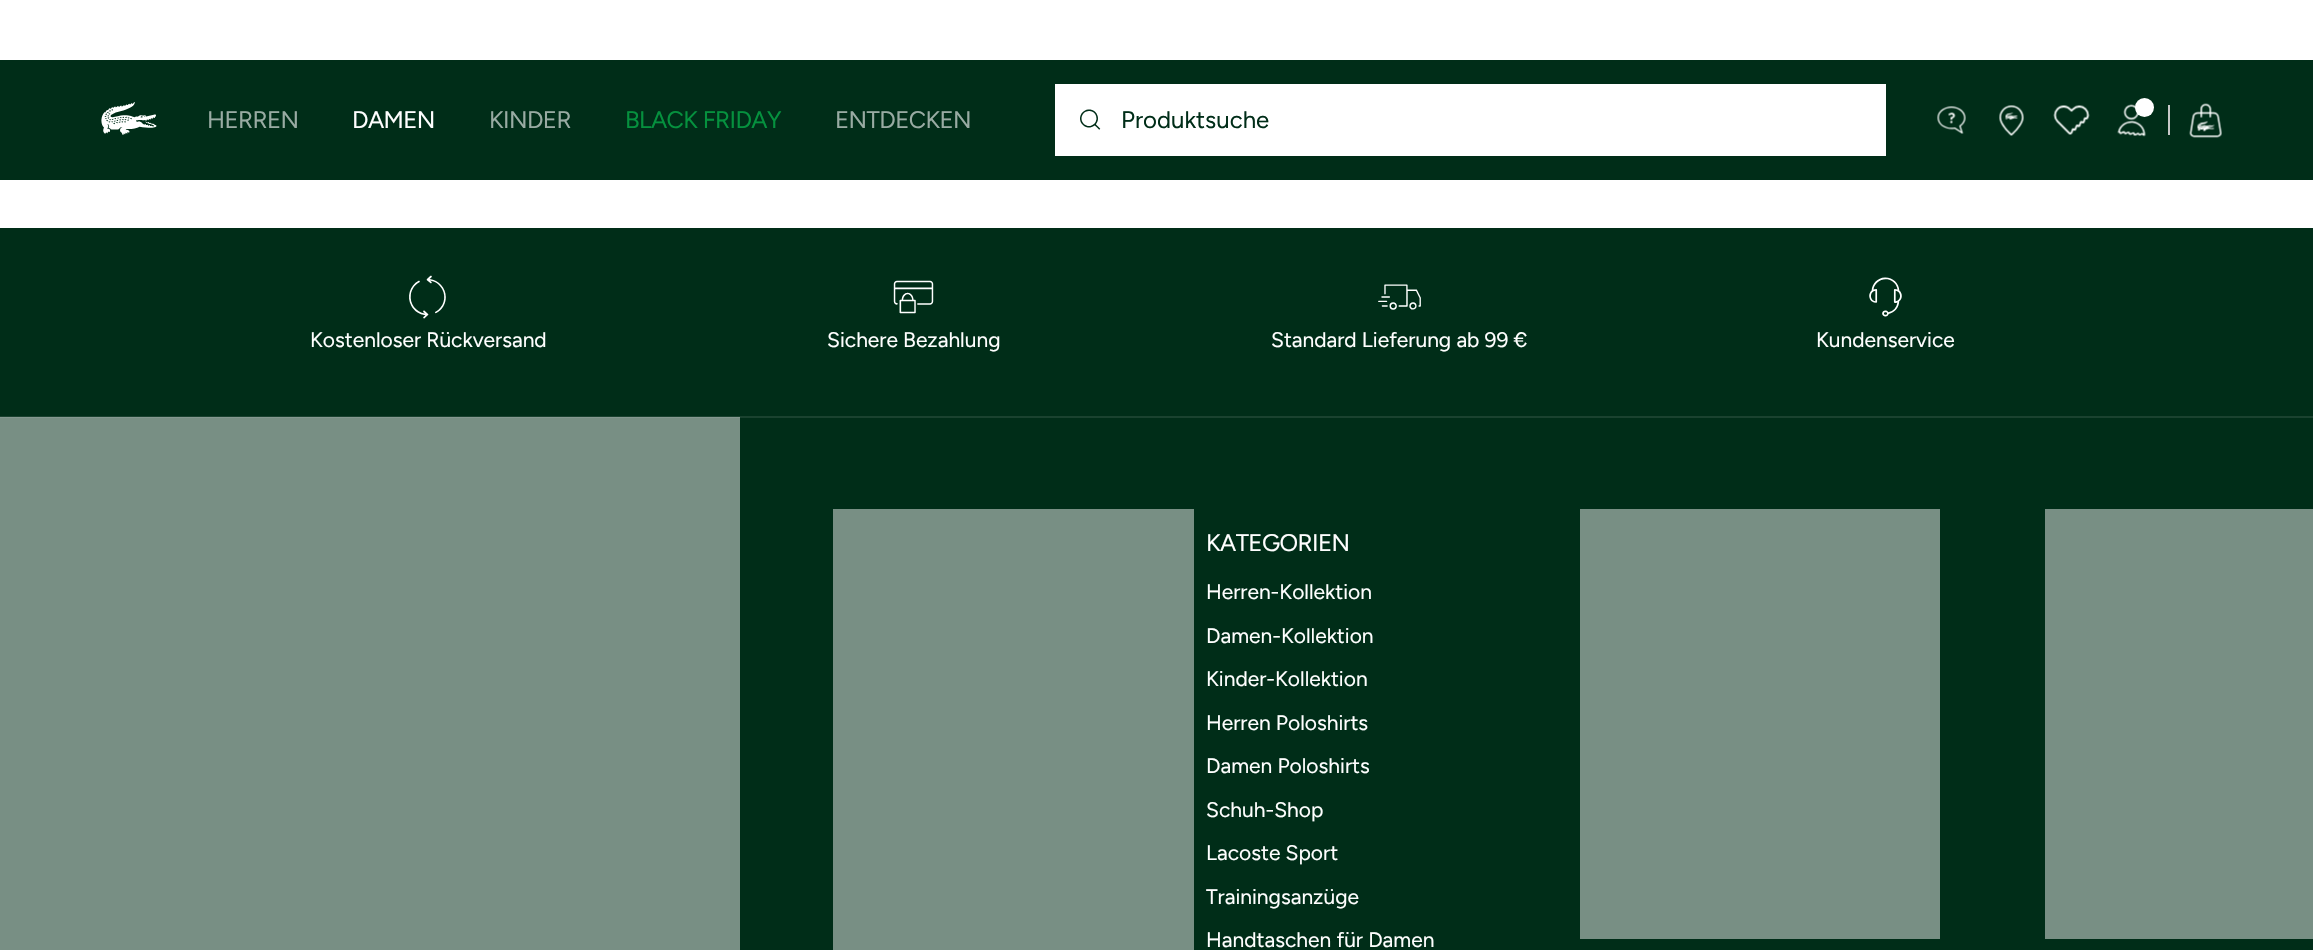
void draw(SkCanvas* canvas) {
    SkPaint paint;
    paint.setAntiAlias(true);
    auto face = [&](const char* family, int weight, float size, bool italic = false) {
        SkFontStyle style(weight, SkFontStyle::kNormal_Width,
            italic ? SkFontStyle::kItalic_Slant : SkFontStyle::kUpright_Slant);
        SkFont result(fontMgr->matchFamilyStyle(family, style), size);
        result.setSubpixel(true);
        return result;
    };
    auto write = [&](const char* s, float x, float y, const SkFont& font, SkColor color) {
        SkPaint ink(SkColor4f::FromColor(color));
        ink.setAntiAlias(true);
        canvas->drawString(s, x, y, font, ink);
    };
    auto writeSpaced = [&](const char* s, float x, float y, const SkFont& font, const SkPaint& ink, float letter, float word) {
        std::vector<SkGlyphID> glyphs(font.countText(s, strlen(s), SkTextEncoding::kUTF8));
        std::vector<float> xs(glyphs.size());
        font.textToGlyphs(s, strlen(s), SkTextEncoding::kUTF8, glyphs);
        font.getXPos(glyphs, xs, x);
        float extra = 0;
        for (size_t i = 0; i < glyphs.size(); i++) {
            xs[i] += extra;
            extra += letter + word * (glyphs[i] == font.unicharToGlyph(' '));
        }
        canvas->drawTextBlob(SkTextBlob::MakeFromPosHGlyphs(glyphs, xs, y, font), 0, 0, ink);
    };
    auto block = [&](float x, float y, float w, float h, SkColor color) {
        SkPaint ink(SkColor4f::FromColor(color));
        ink.setAntiAlias(true);
        canvas->drawRect(SkRect::MakeXYWH(x, y, w, h), ink);
    };
    auto paste = [&](const char* path, float x, float y, float w, float h) {
        auto image = SkImages::DeferredFromEncodedData(SkData::MakeFromFileName(path));
        canvas->drawImageRect(image, SkRect::MakeXYWH(x, y, w, h), SkSamplingOptions());
    };
    canvas->clear(SK_ColorWHITE);
    block(0, 60, 2313, 120, SkColorSetRGB(0, 45, 24));
    paste("pic1.png", 101, 102, 56, 33);
    auto kFont1 = face("Figtree", 400, 24);
    paint.setColor(SkColorSetRGB(153, 171, 163));
    writeSpaced("HERREN", 207, 128, kFont1, paint, -0.6f, 0);
    paint.setColor(SK_ColorWHITE);
    writeSpaced("DAMEN", 352, 128, kFont1, paint, -0.6f, 0);
    paint.setColor(SkColorSetRGB(153, 171, 163));
    writeSpaced("KINDER", 489, 128, kFont1, paint, -0.6f, 0);
    paint.setColor(SkColorSetRGB(5, 145, 62));
    writeSpaced("BLACK FRIDAY", 625, 128, kFont1, paint, -0.6f, 0);
    paint.setColor(SkColorSetRGB(153, 171, 163));
    writeSpaced("ENTDECKEN", 835, 128, kFont1, paint, -0.6f, 0);
    block(1055, 84, 831, 72, SK_ColorWHITE);
    paste("pic2.png", 1080, 109, 21, 21);
    write("Produktsuche", 1121, 128, kFont1, SkColorSetRGB(0, 45, 24));
    paste("pic3.png", 1937, 106, 29, 28);
    paste("pic4.png", 1999, 105, 25, 31);
    paste("pic5.png", 2053, 105, 37, 30);
    paste("pic6.png", 2117, 104, 29, 33);
    paint.setColor(SK_ColorWHITE);
    canvas->drawCircle(2144.5f, 107.5f, 9.5f, paint);
    block(2168, 105, 2, 30, SkColorSetRGB(200, 200, 200));
    paste("pic7.png", 2189, 103, 33, 35);
    block(0, 228, 2313, 722, SkColorSetRGB(0, 45, 24));
    block(0, 418, 740, 532, SkColorSetRGB(120, 143, 132));
    paste("pic8.png", 409, 275, 37, 44);
    auto kFont2 = face("Figtree", 400, 21);
    write("Kostenloser Rückversand", 310, 347, kFont2, SK_ColorWHITE);
    paste("pic9.png", 893, 280, 41, 34);
    write("Sichere Bezahlung", 827, 347, kFont2, SK_ColorWHITE);
    paste("pic10.png", 1378, 284, 43, 26);
    write("Standard Lieferung ab 99 €", 1271, 347, kFont2, SK_ColorWHITE);
    paste("pic11.png", 1869, 277, 33, 40);
    write("Kundenservice", 1816, 347, kFont2, SK_ColorWHITE);
    block(0, 416, 2313, 2, SkColorSetRGB(26, 66, 47));
    block(0, 417, 740, 1, SkColorSetRGB(133, 153, 144));
    block(833, 509, 361, 441, SkColorSetRGB(120, 143, 132));
    writeSpaced("KATEGORIEN", 1206, 551, kFont1, paint, -0.6f, 0);
    write("Herren-Kollektion", 1206, 599, kFont2, SK_ColorWHITE);
    write("Damen-Kollektion", 1206, 643, kFont2, SK_ColorWHITE);
    write("Kinder-Kollektion", 1206, 686, kFont2, SK_ColorWHITE);
    write("Herren Poloshirts", 1206, 730, kFont2, SK_ColorWHITE);
    write("Damen Poloshirts", 1206, 773, kFont2, SK_ColorWHITE);
    write("Schuh-Shop", 1206, 817, kFont2, SK_ColorWHITE);
    write("Lacoste Sport", 1206, 860, kFont2, SK_ColorWHITE);
    write("Trainingsanzüge", 1206, 904, kFont2, SK_ColorWHITE);
    write("Handtaschen für Damen", 1206, 947, kFont2, SK_ColorWHITE);
    block(1580, 509, 360, 430, SkColorSetRGB(120, 143, 132));
    block(2045, 509, 268, 430, SkColorSetRGB(120, 143, 132));
}
